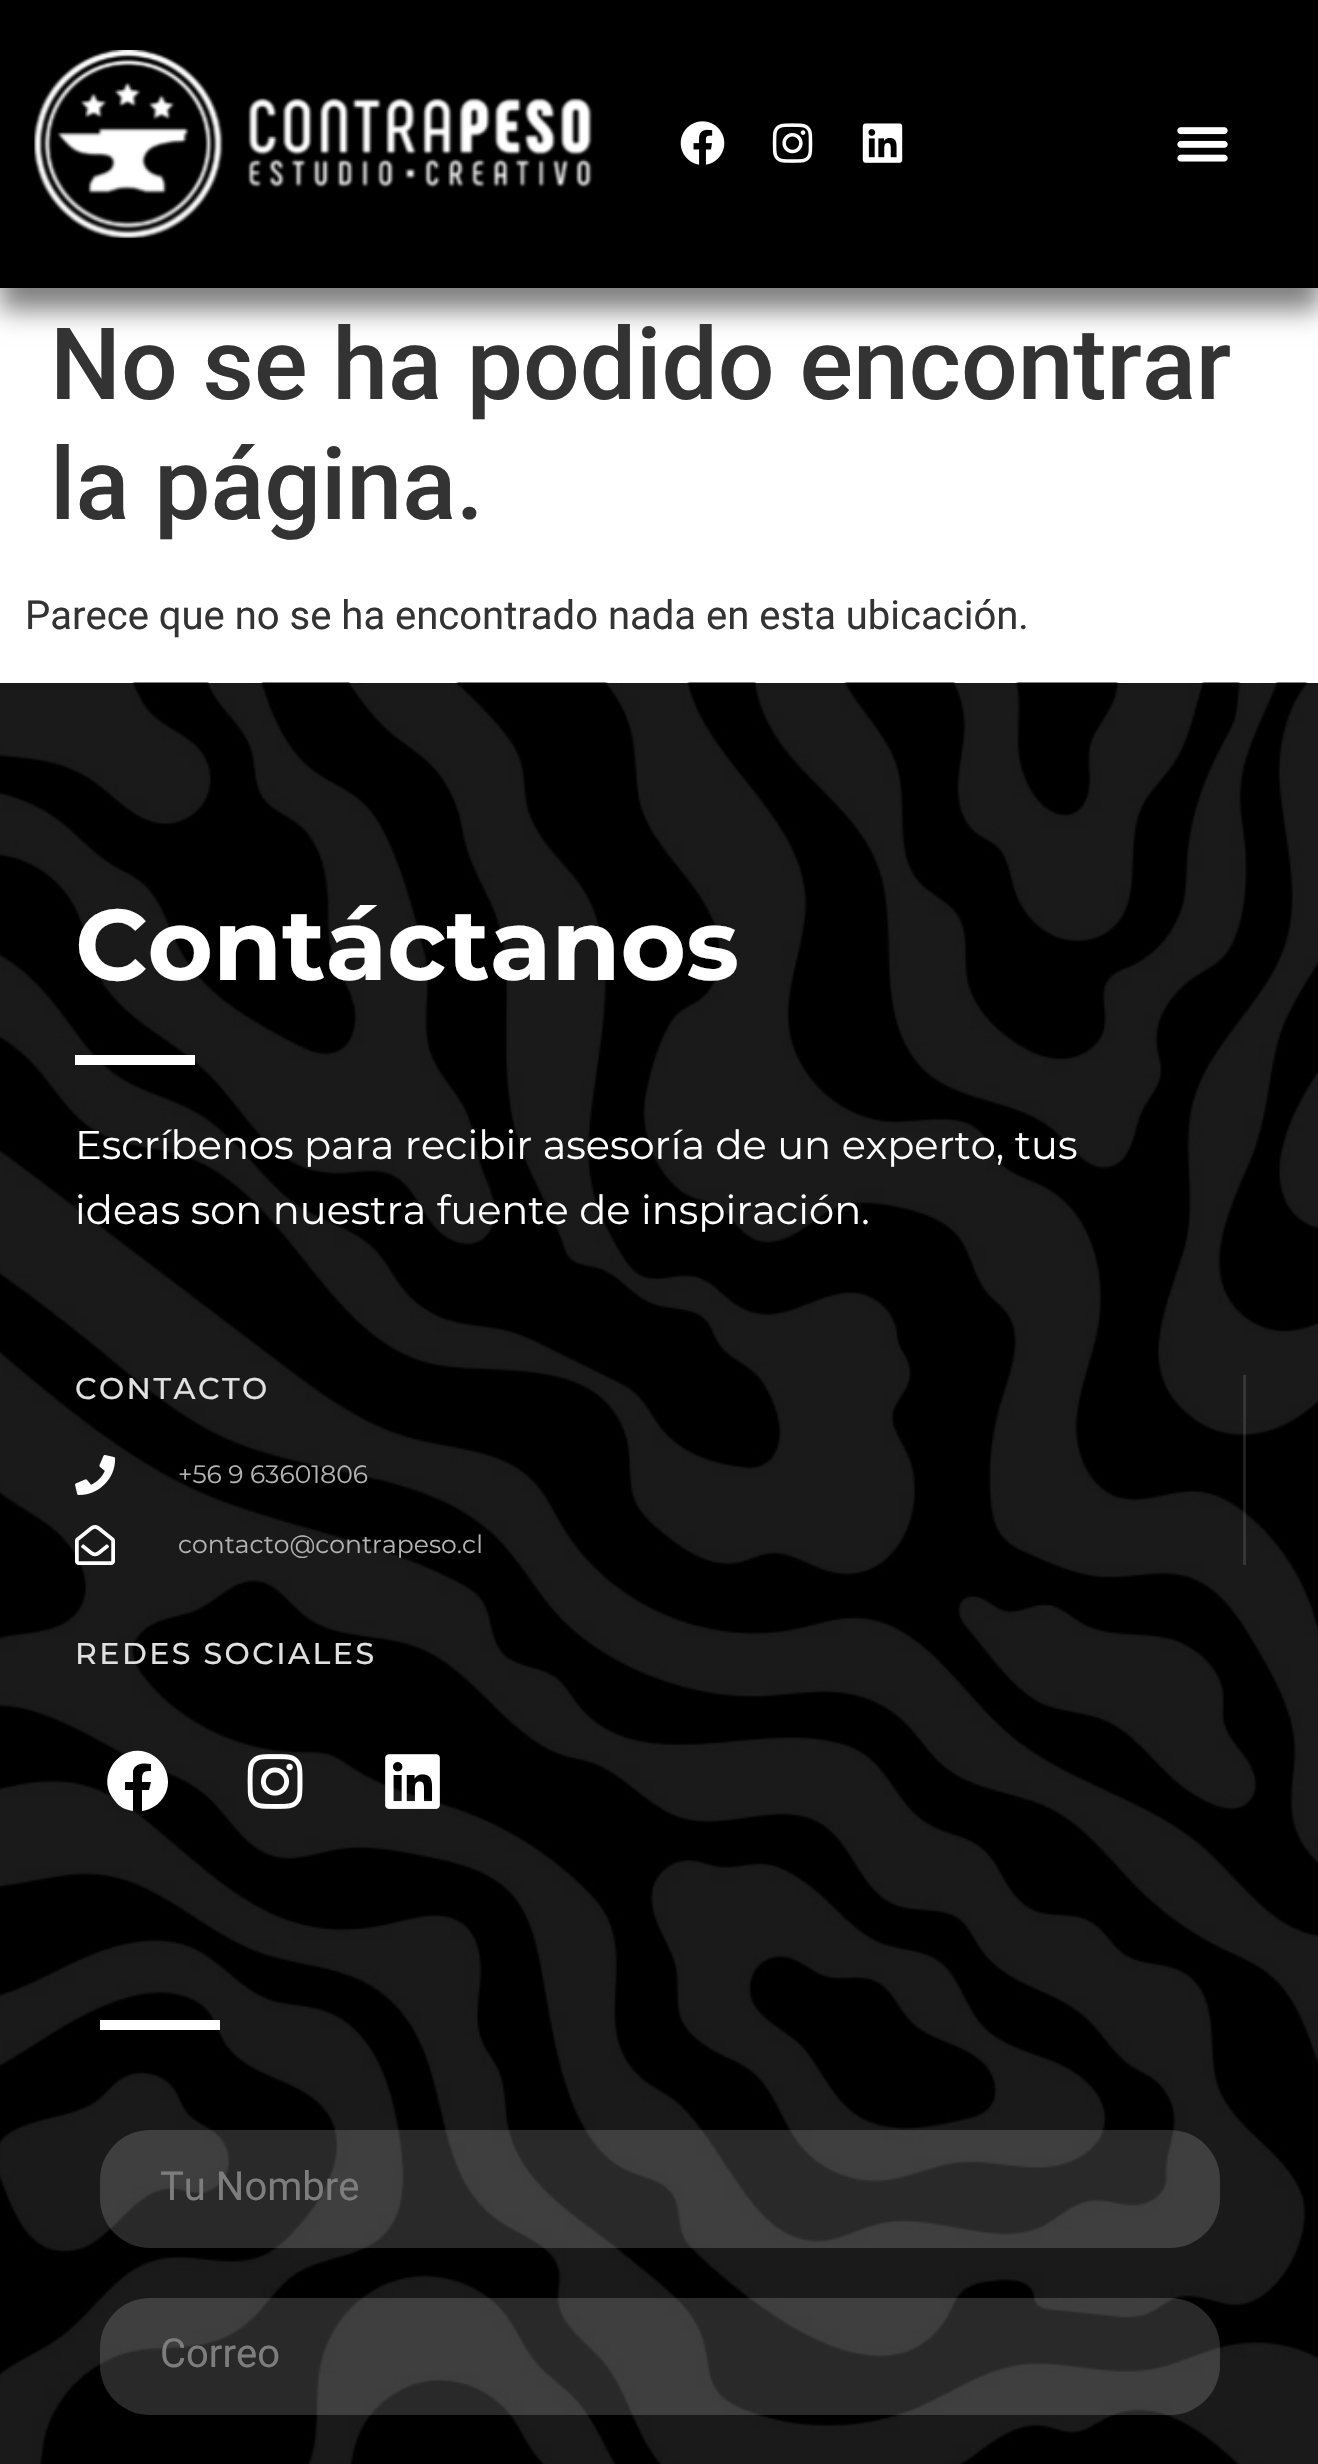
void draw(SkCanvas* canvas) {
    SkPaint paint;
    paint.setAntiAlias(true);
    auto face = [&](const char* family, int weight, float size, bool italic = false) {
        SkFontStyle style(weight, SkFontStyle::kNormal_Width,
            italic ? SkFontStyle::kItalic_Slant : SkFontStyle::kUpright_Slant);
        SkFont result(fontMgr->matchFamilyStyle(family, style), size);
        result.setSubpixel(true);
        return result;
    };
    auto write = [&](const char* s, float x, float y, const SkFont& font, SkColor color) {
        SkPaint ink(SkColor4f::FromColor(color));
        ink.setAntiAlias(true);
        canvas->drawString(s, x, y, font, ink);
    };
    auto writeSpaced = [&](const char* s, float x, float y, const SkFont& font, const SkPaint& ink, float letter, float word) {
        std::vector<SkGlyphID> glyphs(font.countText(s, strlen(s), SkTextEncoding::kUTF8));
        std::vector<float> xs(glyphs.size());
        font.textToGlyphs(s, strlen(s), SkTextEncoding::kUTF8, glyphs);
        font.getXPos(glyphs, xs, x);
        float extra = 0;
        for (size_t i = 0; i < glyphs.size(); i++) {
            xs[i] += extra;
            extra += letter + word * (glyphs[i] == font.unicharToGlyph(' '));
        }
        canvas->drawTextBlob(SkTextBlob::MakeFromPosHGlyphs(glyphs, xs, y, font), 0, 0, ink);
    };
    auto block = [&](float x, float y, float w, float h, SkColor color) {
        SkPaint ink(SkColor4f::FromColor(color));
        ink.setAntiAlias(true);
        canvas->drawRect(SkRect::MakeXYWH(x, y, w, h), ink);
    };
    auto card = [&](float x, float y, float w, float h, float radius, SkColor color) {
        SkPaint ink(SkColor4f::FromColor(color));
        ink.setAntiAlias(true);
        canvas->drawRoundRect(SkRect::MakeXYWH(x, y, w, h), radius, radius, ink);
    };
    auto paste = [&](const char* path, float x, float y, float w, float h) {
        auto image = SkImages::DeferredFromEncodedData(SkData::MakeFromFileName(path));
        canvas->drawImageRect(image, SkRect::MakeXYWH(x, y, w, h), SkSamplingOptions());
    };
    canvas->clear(SK_ColorWHITE);
    paint.setColor(SkColorSetARGB(128, 0, 0, 0));
    paint.setMaskFilter(SkMaskFilter::MakeBlur(kNormal_SkBlurStyle, 12.5f));
    canvas->drawRect(SkRect::MakeXYWH(0, 23, 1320, 287), paint);
    paint.setMaskFilter(nullptr);
    block(0, 0, 1318, 288, SK_ColorBLACK);
    paste("pic1.png", 34, 50, 559, 188);
    paste("pic2.png", 680, 121, 45, 44);
    paste("pic3.png", 772, 123, 41, 40);
    paste("pic4.png", 862, 123, 41, 40);
    paste("pic5.png", 1177, 127, 51, 35);
    auto kFont1 = face("Roboto", 500, 100);
    write("No se ha podido encontrar", 50, 399, kFont1, SkColorSetRGB(51, 51, 51));
    write("la página.", 50, 519, kFont1, SkColorSetRGB(51, 51, 51));
    auto kFont2 = face("Roboto", 400, 40);
    write("Parece que no se ha encontrado nada en esta ubicación.", 25, 629, kFont2, SkColorSetRGB(51, 51, 51));
    paste("pic6.png", 0, 682, 1318, 1782);
    auto kFont3 = face("Montserrat", 700, 100);
    write("Contáctanos", 75, 980, kFont3, SK_ColorWHITE);
    block(75, 1055, 120, 10, SK_ColorWHITE);
    auto kFont4 = face("Montserrat", 400, 40);
    write("Escríbenos para recibir asesoría de un experto, tus", 75, 1159, kFont4, SK_ColorWHITE);
    write("ideas son nuestra fuente de inspiración.", 75, 1224, kFont4, SK_ColorWHITE);
    block(1243, 1375, 3, 190, SkColorSetARGB(31, 255, 255, 255));
    auto kFont5 = face("Montserrat", 500, 30);
    paint.setColor(SkColorSetRGB(224, 224, 224));
    writeSpaced("CONTACTO", 75, 1399, kFont5, paint, 2.5f, 0);
    paste("pic7.png", 75, 1455, 41, 40);
    auto kFont6 = face("Montserrat", 400, 25);
    write("+56 9 63601806", 178, 1483, kFont6, SkColorSetRGB(179, 179, 179));
    paste("pic8.png", 75, 1525, 40, 40);
    write("contacto@contrapeso.cl", 178, 1553, kFont6, SkColorSetRGB(179, 179, 179));
    writeSpaced("REDES SOCIALES", 75, 1664, kFont5, paint, 2.5f, 0);
    paint.setColor(SK_ColorWHITE);
    canvas->drawPath(SkPathBuilder().moveTo(168, 1782).cubicTo(168, 1796, 157, 1809, 142, 1811).lineTo(142, 1790).lineTo(149, 1790).lineTo(151, 1782).lineTo(142, 1782).cubicTo(142, 1773, 142, 1771, 151, 1771).lineTo(151, 1764).cubicTo(144, 1763, 135, 1763, 133, 1771).lineTo(133, 1782).lineTo(125, 1782).lineTo(125, 1790).lineTo(133, 1790).lineTo(133, 1811).cubicTo(126, 1810, 119, 1807, 115, 1801).cubicTo(92, 1775, 125, 1737, 154, 1756).cubicTo(163, 1762, 168, 1772, 168, 1782).close().detach(), paint);
    paste("pic9.png", 247, 1754, 56, 55);
    paste("pic10.png", 385, 1754, 55, 55);
    block(100, 2020, 120, 10, SK_ColorWHITE);
    card(100, 2130, 1120, 118, 50, SkColorSetARGB(41, 255, 255, 255));
    write("Tu Nombre", 160, 2200, kFont2, SkColorSetRGB(125, 125, 125));
    card(100, 2298, 1120, 117, 50, SkColorSetARGB(41, 255, 255, 255));
    write("Correo", 160, 2367, kFont2, SkColorSetRGB(125, 125, 125));
}
